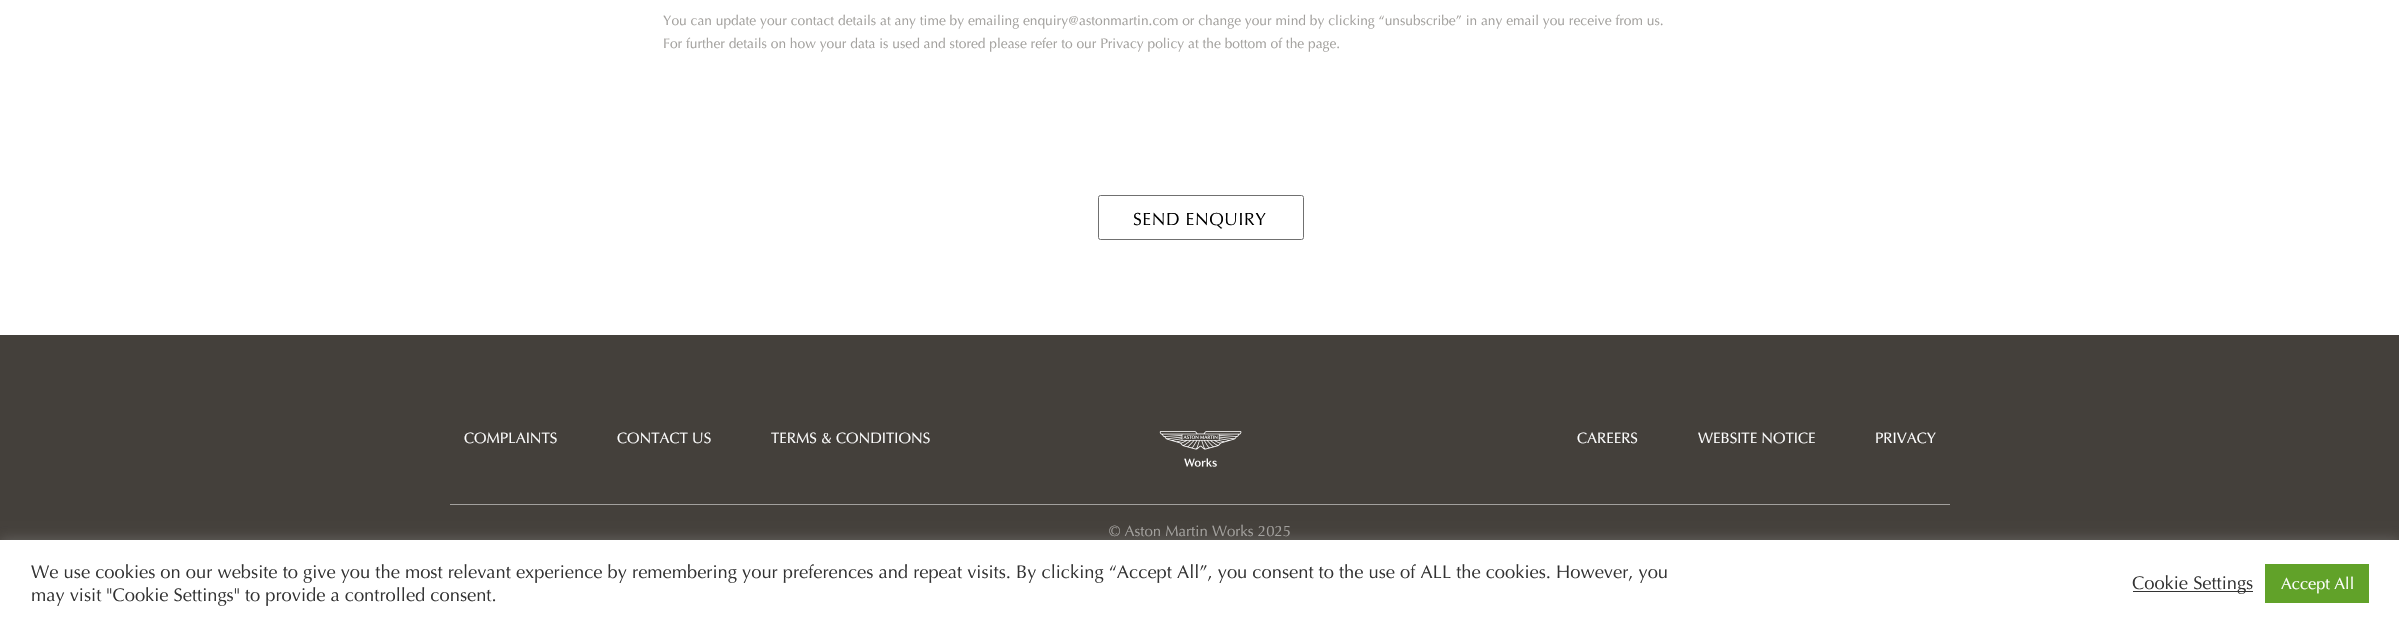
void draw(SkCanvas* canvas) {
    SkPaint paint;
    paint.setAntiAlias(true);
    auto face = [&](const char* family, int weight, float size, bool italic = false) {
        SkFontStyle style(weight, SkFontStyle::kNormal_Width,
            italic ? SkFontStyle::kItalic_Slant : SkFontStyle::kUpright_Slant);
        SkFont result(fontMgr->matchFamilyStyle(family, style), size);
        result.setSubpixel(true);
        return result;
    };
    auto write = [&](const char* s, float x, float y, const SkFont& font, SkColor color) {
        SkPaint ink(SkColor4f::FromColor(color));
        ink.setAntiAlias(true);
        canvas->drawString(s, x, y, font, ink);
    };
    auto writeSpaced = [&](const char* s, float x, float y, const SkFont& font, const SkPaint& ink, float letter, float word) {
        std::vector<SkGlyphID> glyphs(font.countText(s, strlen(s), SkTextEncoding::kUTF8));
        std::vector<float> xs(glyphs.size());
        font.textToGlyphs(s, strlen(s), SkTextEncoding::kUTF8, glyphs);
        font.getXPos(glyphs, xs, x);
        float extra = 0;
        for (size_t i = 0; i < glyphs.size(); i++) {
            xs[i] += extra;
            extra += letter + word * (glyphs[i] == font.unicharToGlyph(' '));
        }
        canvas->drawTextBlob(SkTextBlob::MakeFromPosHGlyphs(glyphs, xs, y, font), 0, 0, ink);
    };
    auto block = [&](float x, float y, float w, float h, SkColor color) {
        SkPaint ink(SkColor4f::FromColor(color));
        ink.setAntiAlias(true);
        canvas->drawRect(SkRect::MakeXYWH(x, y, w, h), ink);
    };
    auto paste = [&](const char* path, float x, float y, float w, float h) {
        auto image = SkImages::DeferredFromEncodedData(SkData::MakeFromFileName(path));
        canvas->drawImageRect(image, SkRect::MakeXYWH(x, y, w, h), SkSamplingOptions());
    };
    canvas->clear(SK_ColorWHITE);
    auto kFont1 = face("Optima", 400, 13.75f);
    write("You can update your contact details at any time by emailing enquiry@astonmartin.com or change your mind by clicking “unsubscribe” in any email you receive from us.", 663, 25, kFont1, SkColorSetRGB(162, 160, 157));
    write("For further details on how your data is used and stored please refer to our Privacy policy at the bottom of the page.", 663, 48, kFont1, SkColorSetRGB(162, 160, 157));
    paint.setStyle(SkPaint::kStroke_Style);
    paint.setStrokeWidth(1);
    paint.setColor(SkColorSetRGB(112, 112, 112));
    canvas->drawRoundRect(SkRect::MakeXYWH(1098.5f, 195.5f, 205, 44), 2, 2, paint);
    auto kFont2 = face("Optima", 400, 17.5f);
    paint.setStyle(SkPaint::kFill_Style);
    paint.setColor(SK_ColorBLACK);
    writeSpaced("SEND ENQUIRY", 1133, 225, kFont2, paint, 0.6f, 0);
    block(0, 335, 2399, 205, SkColorSetRGB(68, 64, 59));
    auto kFont3 = face("Optima", 400, 15);
    write("COMPLAINTS", 464, 443, kFont3, SK_ColorWHITE);
    write("CONTACT US", 617, 443, kFont3, SK_ColorWHITE);
    write("TERMS & CONDITIONS", 771, 443, kFont3, SK_ColorWHITE);
    paste("pic1.png", 1159, 431, 83, 36);
    write("CAREERS", 1577, 443, kFont3, SK_ColorWHITE);
    write("WEBSITE NOTICE", 1698, 443, kFont3, SK_ColorWHITE);
    write("PRIVACY", 1875, 443, kFont3, SK_ColorWHITE);
    block(450, 504, 1500, 1, SkColorSetRGB(162, 160, 157));
    write("© Aston Martin Works 2025", 1109, 536, kFont3, SkColorSetRGB(162, 160, 157));
    paint.setColor(SkColorSetARGB(77, 172, 171, 171));
    paint.setMaskFilter(SkMaskFilter::MakeBlur(kNormal_SkBlurStyle, 6));
    canvas->drawRect(SkRect::MakeXYWH(0, 539, 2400, 86), paint);
    paint.setMaskFilter(nullptr);
    block(0, 540, 2399, 86, SK_ColorWHITE);
    auto kFont4 = face("Optima", 400, 18.33f);
    write("We use cookies on our website to give you the most relevant experience by remembering your preferences and repeat visits. By clicking “Accept All”, you consent to the use of ALL the cookies. However, you", 31, 578, kFont4, SkColorSetRGB(51, 51, 51));
    write("may visit \"Cookie Settings\" to provide a controlled consent.", 31, 601, kFont4, SkColorSetRGB(51, 51, 51));
    block(2133, 591, 120, 1, SkColorSetRGB(51, 51, 51));
    write("Cookie Settings", 2132, 589, kFont4, SkColorSetRGB(51, 51, 51));
    block(2265, 564, 104, 39, SkColorSetRGB(97, 162, 41));
    auto kFont5 = face("Optima", 400, 16.25f);
    write("Accept All", 2281, 589, kFont5, SK_ColorWHITE);
}
